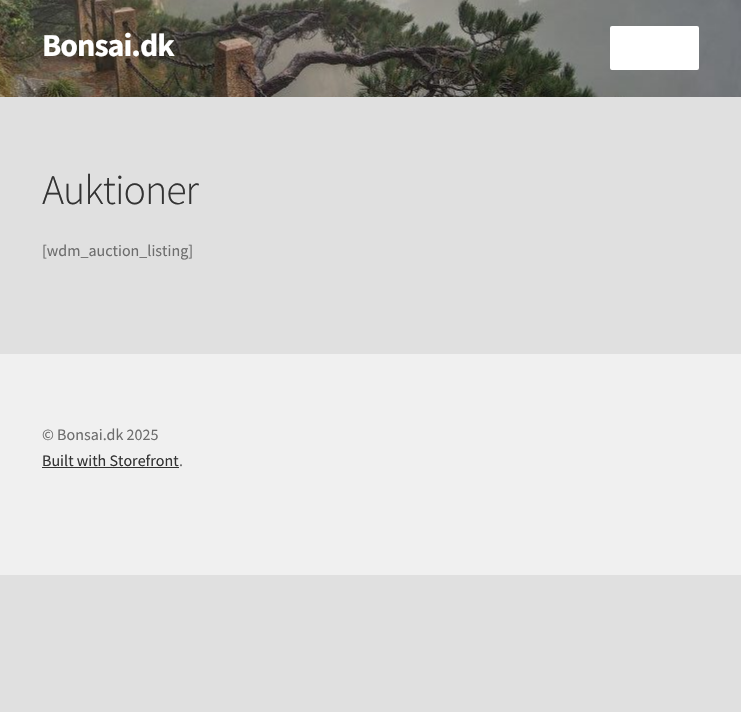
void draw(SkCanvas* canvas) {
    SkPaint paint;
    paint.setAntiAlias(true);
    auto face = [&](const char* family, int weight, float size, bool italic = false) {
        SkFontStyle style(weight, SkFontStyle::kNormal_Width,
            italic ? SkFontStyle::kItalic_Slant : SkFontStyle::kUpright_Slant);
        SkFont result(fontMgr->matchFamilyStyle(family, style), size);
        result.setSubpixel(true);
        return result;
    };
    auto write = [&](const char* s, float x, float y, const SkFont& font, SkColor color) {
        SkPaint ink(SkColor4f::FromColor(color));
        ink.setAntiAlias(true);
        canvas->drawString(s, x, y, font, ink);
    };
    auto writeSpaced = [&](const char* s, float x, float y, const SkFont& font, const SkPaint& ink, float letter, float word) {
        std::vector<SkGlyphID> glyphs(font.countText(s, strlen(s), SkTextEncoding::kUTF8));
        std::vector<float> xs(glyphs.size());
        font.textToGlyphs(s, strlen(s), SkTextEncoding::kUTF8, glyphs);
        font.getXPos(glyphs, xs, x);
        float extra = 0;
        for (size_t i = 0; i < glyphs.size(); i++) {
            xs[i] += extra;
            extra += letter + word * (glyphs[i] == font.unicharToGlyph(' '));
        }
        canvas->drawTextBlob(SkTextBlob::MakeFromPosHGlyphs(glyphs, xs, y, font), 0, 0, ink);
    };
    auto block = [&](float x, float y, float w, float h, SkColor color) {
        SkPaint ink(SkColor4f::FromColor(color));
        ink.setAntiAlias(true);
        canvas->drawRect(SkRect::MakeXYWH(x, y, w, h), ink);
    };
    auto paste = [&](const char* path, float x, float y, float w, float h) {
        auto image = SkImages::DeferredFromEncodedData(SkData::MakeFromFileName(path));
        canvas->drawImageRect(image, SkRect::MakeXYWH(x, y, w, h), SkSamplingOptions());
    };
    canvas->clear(SkColorSetRGB(224, 224, 224));
    paste("pic1.png", 0, 0, 741, 97);
    auto kFont1 = face("Source Sans Pro", 700, 32);
    paint.setColor(SK_ColorWHITE);
    writeSpaced("Bonsai.dk", 42, 56, kFont1, paint, -1, 0);
    canvas->drawRoundRect(SkRect::MakeXYWH(611, 27, 87, 42), 1, 1, paint);
    paint.setStyle(SkPaint::kStroke_Style);
    paint.setStrokeWidth(2);
    canvas->drawRoundRect(SkRect::MakeXYWH(611, 27, 87, 42), 1, 1, paint);
    auto kFont2 = face("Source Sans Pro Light", 300, 42);
    paint.setStyle(SkPaint::kFill_Style);
    paint.setColor(SkColorSetRGB(51, 51, 51));
    writeSpaced("Auktioner", 42, 204, kFont2, paint, -1, 0);
    auto kFont3 = face("Source Sans Pro", 400, 16);
    write("[wdm_auction_listing]", 42, 256, kFont3, SkColorSetRGB(109, 109, 109));
    block(0, 354, 741, 221, SkColorSetRGB(240, 240, 240));
    write("© Bonsai.dk 2025", 42, 440, kFont3, SkColorSetRGB(109, 109, 109));
    write("Built with Storefront", 42, 466, kFont3, SkColorSetRGB(51, 51, 51));
    block(42, 467, 137, 1, SkColorSetRGB(51, 51, 51));
    write(".", 179, 466, kFont3, SkColorSetRGB(109, 109, 109));
}
